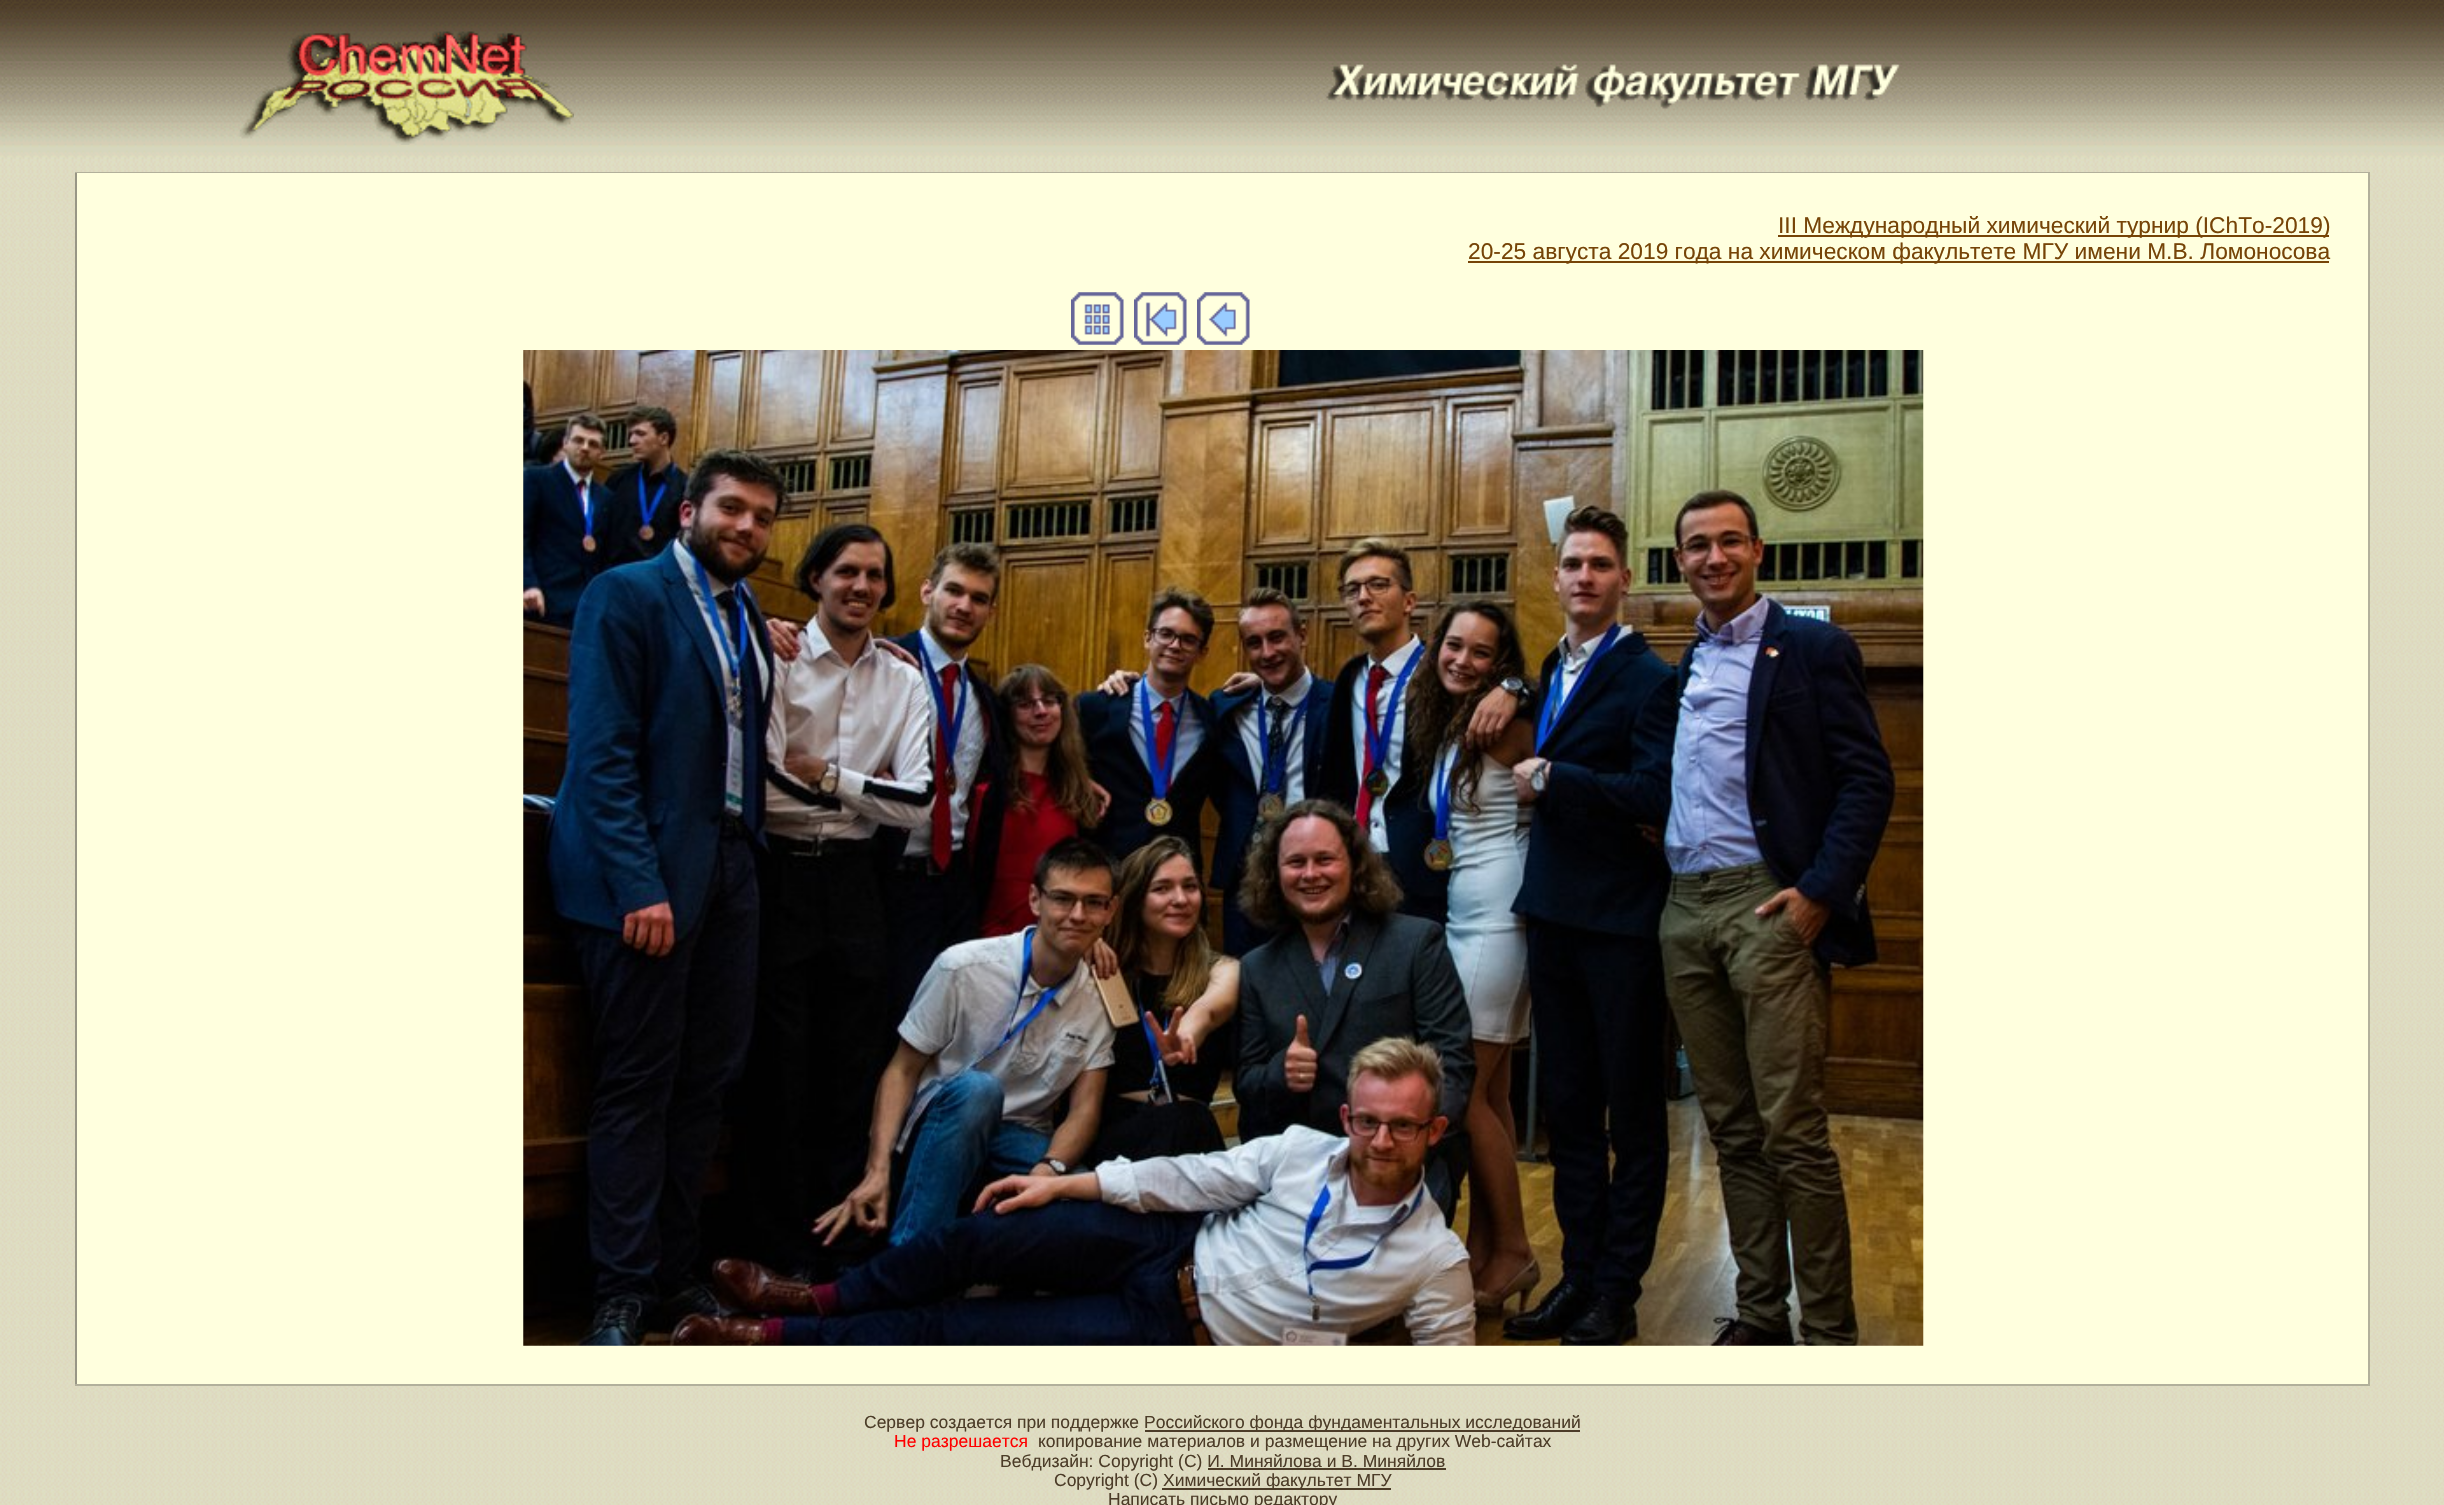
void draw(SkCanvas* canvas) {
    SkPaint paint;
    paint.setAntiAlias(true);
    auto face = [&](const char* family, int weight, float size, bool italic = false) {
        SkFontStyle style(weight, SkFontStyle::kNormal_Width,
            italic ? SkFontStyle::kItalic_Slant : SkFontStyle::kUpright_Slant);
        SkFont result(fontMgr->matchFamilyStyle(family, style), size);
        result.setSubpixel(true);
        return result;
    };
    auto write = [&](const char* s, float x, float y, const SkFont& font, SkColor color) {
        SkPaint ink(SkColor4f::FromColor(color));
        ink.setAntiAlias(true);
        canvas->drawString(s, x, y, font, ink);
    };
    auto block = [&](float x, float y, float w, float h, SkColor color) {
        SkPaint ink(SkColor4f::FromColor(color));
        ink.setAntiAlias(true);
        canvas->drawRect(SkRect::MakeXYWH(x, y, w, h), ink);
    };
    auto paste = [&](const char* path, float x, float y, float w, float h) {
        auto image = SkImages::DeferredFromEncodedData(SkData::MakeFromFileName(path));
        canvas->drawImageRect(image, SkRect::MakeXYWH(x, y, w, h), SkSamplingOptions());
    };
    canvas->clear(SK_ColorWHITE);
    paste("pic1.png", 0, 0, 2444, 1505);
    paste("pic2.png", 239, 31, 335, 114);
    paste("pic3.png", 1326, 64, 574, 45);
    block(75, 172, 2295, 1, SkColorSetRGB(178, 176, 155));
    block(75, 173, 2, 1211, SkColorSetRGB(152, 150, 133));
    block(77, 173, 2291, 1211, SkColorSetRGB(255, 255, 222));
    block(1778, 235, 551, 2, SkColorSetRGB(118, 68, 7));
    auto kFont1 = face("Liberation Sans", 400, 22.75f);
    write("III Международный химический турнир (IChTo-2019)", 1778, 233, kFont1, SkColorSetRGB(118, 68, 7));
    block(1468, 261, 861, 2, SkColorSetRGB(118, 68, 7));
    write("20-25 августа 2019 года на химическом факультете МГУ имени М.В. Ломоносова", 1468, 259, kFont1, SkColorSetRGB(118, 68, 7));
    paste("pic4.png", 1071, 292, 53, 53);
    paste("pic5.png", 1134, 292, 53, 53);
    paste("pic6.png", 1197, 292, 53, 53);
    paste("pic7.png", 523, 350, 1401, 996);
    block(2368, 173, 2, 1211, SkColorSetRGB(178, 176, 155));
    block(75, 1384, 2295, 2, SkColorSetRGB(178, 176, 155));
    auto kFont2 = face("Liberation Sans", 400, 17.5f);
    write("Сервер создается при поддержке", 864, 1428, kFont2, SkColorSetRGB(76, 60, 40));
    block(1145, 1430, 435, 2, SkColorSetRGB(76, 60, 40));
    write("Российского фонда фундаментальных исследований", 1144, 1428, kFont2, SkColorSetRGB(76, 60, 40));
    write("Не разрешается", 894, 1447, kFont2, SkColorSetRGB(255, 0, 0));
    write("копирование материалов и размещение на других Web-сайтах", 1038, 1447, kFont2, SkColorSetRGB(76, 60, 40));
    write("Вебдизайн: Copyright (C) И. Миняйлова и В. Миняйлов", 1000, 1467, kFont2, SkColorSetRGB(76, 60, 40));
    block(1208, 1468, 238, 2, SkColorSetRGB(76, 60, 40));
    write("Copyright (C)", 1054, 1486, kFont2, SkColorSetRGB(76, 60, 40));
    block(1162, 1488, 229, 2, SkColorSetRGB(76, 60, 40));
    write("Химический факультет МГУ", 1163, 1486, kFont2, SkColorSetRGB(76, 60, 40));
    write("Написать письмо редактору", 1108, 1505, kFont2, SkColorSetRGB(76, 60, 40));
}
